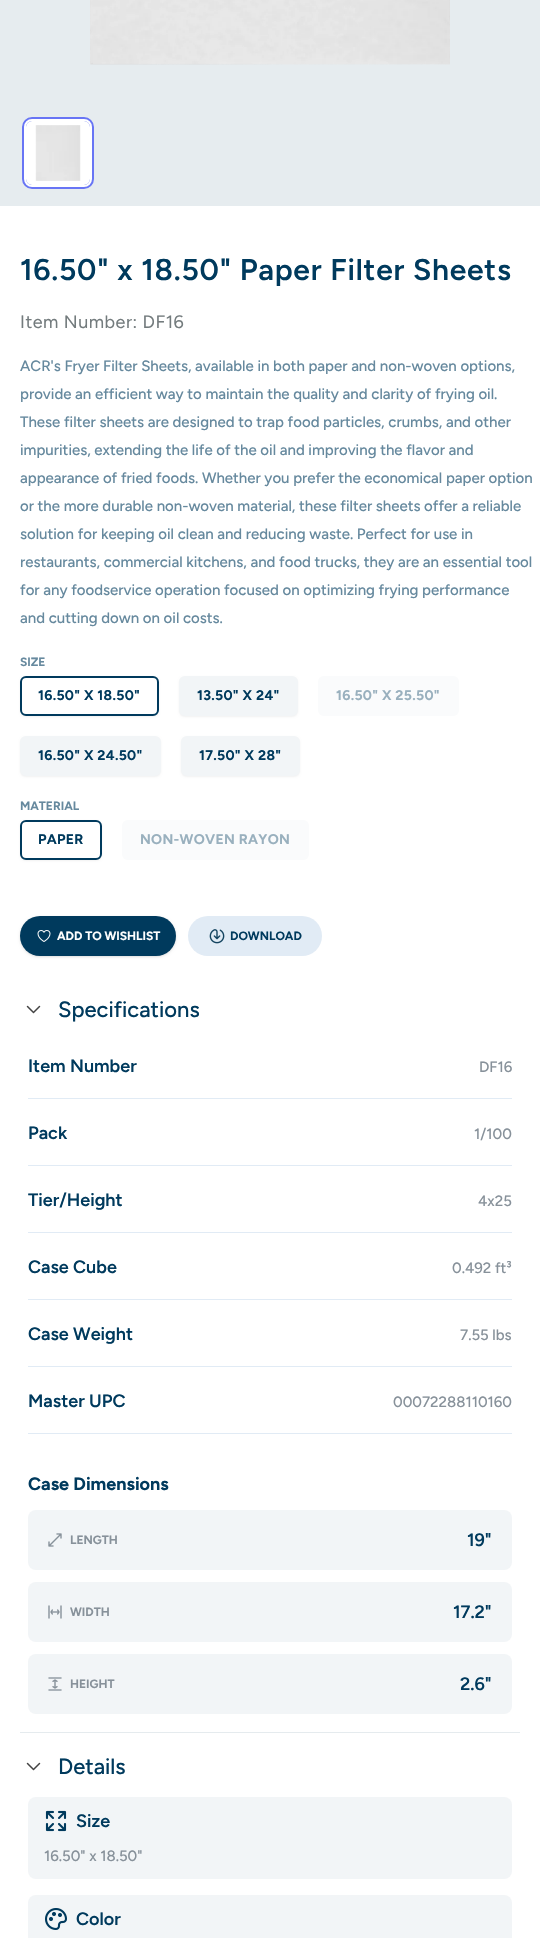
void draw(SkCanvas* canvas) {
    SkPaint paint;
    paint.setAntiAlias(true);
    auto face = [&](const char* family, int weight, float size, bool italic = false) {
        SkFontStyle style(weight, SkFontStyle::kNormal_Width,
            italic ? SkFontStyle::kItalic_Slant : SkFontStyle::kUpright_Slant);
        SkFont result(fontMgr->matchFamilyStyle(family, style), size);
        result.setSubpixel(true);
        return result;
    };
    auto write = [&](const char* s, float x, float y, const SkFont& font, SkColor color) {
        SkPaint ink(SkColor4f::FromColor(color));
        ink.setAntiAlias(true);
        canvas->drawString(s, x, y, font, ink);
    };
    auto writeSpaced = [&](const char* s, float x, float y, const SkFont& font, const SkPaint& ink, float letter, float word) {
        std::vector<SkGlyphID> glyphs(font.countText(s, strlen(s), SkTextEncoding::kUTF8));
        std::vector<float> xs(glyphs.size());
        font.textToGlyphs(s, strlen(s), SkTextEncoding::kUTF8, glyphs);
        font.getXPos(glyphs, xs, x);
        float extra = 0;
        for (size_t i = 0; i < glyphs.size(); i++) {
            xs[i] += extra;
            extra += letter + word * (glyphs[i] == font.unicharToGlyph(' '));
        }
        canvas->drawTextBlob(SkTextBlob::MakeFromPosHGlyphs(glyphs, xs, y, font), 0, 0, ink);
    };
    auto block = [&](float x, float y, float w, float h, SkColor color) {
        SkPaint ink(SkColor4f::FromColor(color));
        ink.setAntiAlias(true);
        canvas->drawRect(SkRect::MakeXYWH(x, y, w, h), ink);
    };
    auto card = [&](float x, float y, float w, float h, float radius, SkColor color) {
        SkPaint ink(SkColor4f::FromColor(color));
        ink.setAntiAlias(true);
        canvas->drawRoundRect(SkRect::MakeXYWH(x, y, w, h), radius, radius, ink);
    };
    auto paste = [&](const char* path, float x, float y, float w, float h) {
        auto image = SkImages::DeferredFromEncodedData(SkData::MakeFromFileName(path));
        canvas->drawImageRect(image, SkRect::MakeXYWH(x, y, w, h), SkSamplingOptions());
    };
    canvas->clear(SK_ColorWHITE);
    block(0, 0, 540, 206, SkColorSetRGB(230, 236, 239));
    paste("pic1.png", 90, 0, 360, 65);
    card(26, 121, 64, 64, 6, SK_ColorWHITE);
    paste("pic2.png", 35, 125, 46, 56);
    paint.setStyle(SkPaint::kStroke_Style);
    paint.setStrokeWidth(4);
    paint.setColor(SkColorSetRGB(104, 117, 245));
    canvas->drawRoundRect(SkRect::MakeXYWH(24, 119, 68, 68), 8, 8, paint);
    paint.setStrokeWidth(2);
    paint.setColor(SK_ColorWHITE);
    canvas->drawRoundRect(SkRect::MakeXYWH(25, 120, 66, 66), 7, 7, paint);
    auto kFont1 = face("Figtree", 600, 30);
    paint.setStyle(SkPaint::kFill_Style);
    paint.setColor(SkColorSetRGB(0, 58, 93));
    writeSpaced("16.50\" x 18.50\" Paper Filter Sheets", 20, 280, kFont1, paint, 0.75f, 0);
    auto kFont2 = face("Figtree", 400, 18);
    paint.setColor(SkColorSetRGB(115, 123, 125));
    writeSpaced("Item Number: DF16", 20, 328, kFont2, paint, 0.5f, 0);
    auto kFont3 = face("Figtree", 500, 15);
    write("ACR's Fryer Filter Sheets, available in both paper and non-woven options,", 20, 371, kFont3, SkColorSetRGB(102, 137, 158));
    write("provide an efficient way to maintain the quality and clarity of frying oil.", 20, 399, kFont3, SkColorSetRGB(102, 137, 158));
    write("These filter sheets are designed to trap food particles, crumbs, and other", 20, 427, kFont3, SkColorSetRGB(102, 137, 158));
    write("impurities, extending the life of the oil and improving the flavor and", 20, 455, kFont3, SkColorSetRGB(102, 137, 158));
    write("appearance of fried foods. Whether you prefer the economical paper option", 20, 483, kFont3, SkColorSetRGB(102, 137, 158));
    write("or the more durable non-woven material, these filter sheets offer a reliable", 20, 511, kFont3, SkColorSetRGB(102, 137, 158));
    write("solution for keeping oil clean and reducing waste. Perfect for use in", 20, 539, kFont3, SkColorSetRGB(102, 137, 158));
    write("restaurants, commercial kitchens, and food trucks, they are an essential tool", 20, 567, kFont3, SkColorSetRGB(102, 137, 158));
    write("for any foodservice operation focused on optimizing frying performance", 20, 595, kFont3, SkColorSetRGB(102, 137, 158));
    write("and cutting down on oil costs.", 20, 623, kFont3, SkColorSetRGB(102, 137, 158));
    auto kFont4 = face("Figtree", 700, 12);
    write("SIZE", 20, 666, kFont4, SkColorSetRGB(102, 137, 158));
    paint.setColor(SkColorSetARGB(13, 0, 0, 0));
    paint.setMaskFilter(SkMaskFilter::MakeBlur(kNormal_SkBlurStyle, 1));
    canvas->drawRoundRect(SkRect::MakeXYWH(20, 677, 139, 40), 6, 6, paint);
    paint.setMaskFilter(nullptr);
    paint.setColor(SK_ColorWHITE);
    canvas->drawRoundRect(SkRect::MakeXYWH(21, 677, 137, 38), 5, 5, paint);
    paint.setStyle(SkPaint::kStroke_Style);
    paint.setColor(SkColorSetRGB(0, 58, 93));
    canvas->drawRoundRect(SkRect::MakeXYWH(21, 677, 137, 38), 5, 5, paint);
    auto kFont5 = face("Figtree", 700, 14);
    paint.setStyle(SkPaint::kFill_Style);
    writeSpaced("16.50\" X 18.50\"", 38, 700, kFont5, paint, 0.3f, 0);
    paint.setColor(SkColorSetARGB(13, 0, 0, 0));
    paint.setMaskFilter(SkMaskFilter::MakeBlur(kNormal_SkBlurStyle, 1));
    canvas->drawRoundRect(SkRect::MakeXYWH(179, 677, 119, 40), 6, 6, paint);
    paint.setMaskFilter(nullptr);
    paint.setColor(SkColorSetRGB(242, 245, 247));
    canvas->drawRoundRect(SkRect::MakeXYWH(180, 677, 117, 38), 5, 5, paint);
    paint.setStyle(SkPaint::kStroke_Style);
    canvas->drawRoundRect(SkRect::MakeXYWH(180, 677, 117, 38), 5, 5, paint);
    paint.setStyle(SkPaint::kFill_Style);
    paint.setColor(SkColorSetRGB(0, 58, 93));
    writeSpaced("13.50\" X 24\"", 197, 700, kFont5, paint, 0.3f, 0);
    card(318, 676, 141, 40, 6, SkColorSetRGB(250, 251, 252));
    paint.setColor(SkColorSetRGB(153, 176, 190));
    writeSpaced("16.50\" X 25.50\"", 336, 700, kFont5, paint, 0.3f, 0);
    paint.setColor(SkColorSetARGB(13, 0, 0, 0));
    paint.setMaskFilter(SkMaskFilter::MakeBlur(kNormal_SkBlurStyle, 1));
    canvas->drawRoundRect(SkRect::MakeXYWH(20, 737, 141, 40), 6, 6, paint);
    paint.setMaskFilter(nullptr);
    paint.setColor(SkColorSetRGB(242, 245, 247));
    canvas->drawRoundRect(SkRect::MakeXYWH(21, 737, 139, 38), 5, 5, paint);
    paint.setStyle(SkPaint::kStroke_Style);
    canvas->drawRoundRect(SkRect::MakeXYWH(21, 737, 139, 38), 5, 5, paint);
    paint.setStyle(SkPaint::kFill_Style);
    paint.setColor(SkColorSetRGB(0, 58, 93));
    writeSpaced("16.50\" X 24.50\"", 38, 760, kFont5, paint, 0.3f, 0);
    paint.setColor(SkColorSetARGB(13, 0, 0, 0));
    paint.setMaskFilter(SkMaskFilter::MakeBlur(kNormal_SkBlurStyle, 1));
    canvas->drawRoundRect(SkRect::MakeXYWH(181, 737, 119, 40), 6, 6, paint);
    paint.setMaskFilter(nullptr);
    paint.setColor(SkColorSetRGB(242, 245, 247));
    canvas->drawRoundRect(SkRect::MakeXYWH(182, 737, 117, 38), 5, 5, paint);
    paint.setStyle(SkPaint::kStroke_Style);
    canvas->drawRoundRect(SkRect::MakeXYWH(182, 737, 117, 38), 5, 5, paint);
    paint.setStyle(SkPaint::kFill_Style);
    paint.setColor(SkColorSetRGB(0, 58, 93));
    writeSpaced("17.50\" X 28\"", 199, 760, kFont5, paint, 0.3f, 0);
    write("MATERIAL", 20, 810, kFont4, SkColorSetRGB(102, 137, 158));
    paint.setColor(SkColorSetARGB(13, 0, 0, 0));
    paint.setMaskFilter(SkMaskFilter::MakeBlur(kNormal_SkBlurStyle, 1));
    canvas->drawRoundRect(SkRect::MakeXYWH(20, 821, 82, 40), 6, 6, paint);
    paint.setMaskFilter(nullptr);
    paint.setColor(SK_ColorWHITE);
    canvas->drawRoundRect(SkRect::MakeXYWH(21, 821, 80, 38), 5, 5, paint);
    paint.setStyle(SkPaint::kStroke_Style);
    paint.setColor(SkColorSetRGB(0, 58, 93));
    canvas->drawRoundRect(SkRect::MakeXYWH(21, 821, 80, 38), 5, 5, paint);
    paint.setStyle(SkPaint::kFill_Style);
    writeSpaced("PAPER", 38, 844, kFont5, paint, 0.3f, 0);
    card(122, 820, 187, 40, 6, SkColorSetRGB(250, 251, 252));
    paint.setColor(SkColorSetRGB(153, 176, 190));
    writeSpaced("NON-WOVEN RAYON", 140, 844, kFont5, paint, 0.3f, 0);
    paint.setColor(SkColorSetARGB(26, 0, 0, 0));
    paint.setMaskFilter(SkMaskFilter::MakeBlur(kNormal_SkBlurStyle, 1));
    canvas->drawRoundRect(SkRect::MakeXYWH(21, 918, 154, 38), 19, 19, paint);
    paint.setMaskFilter(nullptr);
    paint.setMaskFilter(SkMaskFilter::MakeBlur(kNormal_SkBlurStyle, 1.5f));
    canvas->drawRoundRect(SkRect::MakeXYWH(20, 917, 156, 40), 20, 20, paint);
    paint.setMaskFilter(nullptr);
    card(20, 916, 156, 40, 20, SkColorSetRGB(0, 58, 93));
    paste("pic3.png", 37, 930, 14, 12);
    write("ADD TO WISHLIST", 57, 940, kFont4, SK_ColorWHITE);
    card(188, 916, 134, 40, 20, SkColorSetRGB(225, 235, 245));
    paste("pic4.png", 209, 929, 16, 15);
    write("DOWNLOAD", 230, 940, kFont4, SkColorSetRGB(0, 58, 93));
    block(20, 1732, 500, 1, SkColorSetRGB(229, 235, 238));
    paint.setStyle(SkPaint::kStroke_Style);
    paint.setStrokeWidth(1.5f);
    paint.setStrokeCap(SkPaint::kRound_Cap);
    paint.setStrokeJoin(SkPaint::kRound_Join);
    paint.setColor(SkColorSetRGB(68, 68, 68));
    canvas->drawPath(SkPathBuilder().moveTo(27.5f, 1006.5f).lineTo(33.5f, 1012.5f).lineTo(39.5f, 1006.5f).detach(), paint);
    auto kFont6 = face("Figtree", 500, 22);
    write("Specifications", 58, 1017, kFont6, SkColorSetRGB(0, 58, 93));
    block(28, 1098, 484, 1, SkColorSetRGB(225, 235, 245));
    auto kFont7 = face("Figtree", 600, 18);
    write("Item Number", 28, 1072, kFont7, SkColorSetRGB(0, 58, 93));
    write("DF16", 479, 1072, kFont3, SkColorSetRGB(135, 145, 154));
    block(28, 1165, 484, 1, SkColorSetRGB(225, 235, 245));
    write("Pack", 28, 1139, kFont7, SkColorSetRGB(0, 58, 93));
    write("1/100", 474, 1139, kFont3, SkColorSetRGB(135, 145, 154));
    block(28, 1232, 484, 1, SkColorSetRGB(225, 235, 245));
    write("Tier/Height", 28, 1206, kFont7, SkColorSetRGB(0, 58, 93));
    write("4x25", 478, 1206, kFont3, SkColorSetRGB(135, 145, 154));
    block(28, 1299, 484, 1, SkColorSetRGB(225, 235, 245));
    write("Case Cube", 28, 1273, kFont7, SkColorSetRGB(0, 58, 93));
    write("0.492 ft³", 452, 1273, kFont3, SkColorSetRGB(135, 145, 154));
    block(28, 1366, 484, 1, SkColorSetRGB(225, 235, 245));
    write("Case Weight", 28, 1340, kFont7, SkColorSetRGB(0, 58, 93));
    write("7.55 lbs", 460, 1340, kFont3, SkColorSetRGB(135, 145, 154));
    block(28, 1433, 484, 1, SkColorSetRGB(225, 235, 245));
    write("Master UPC", 28, 1407, kFont7, SkColorSetRGB(0, 58, 93));
    write("00072288110160", 393, 1407, kFont3, SkColorSetRGB(135, 145, 154));
    auto kFont8 = face("Figtree", 700, 18);
    write("Case Dimensions", 28, 1490, kFont8, SkColorSetRGB(0, 58, 93));
    card(28, 1510, 484, 60, 8, SkColorSetRGB(242, 245, 247));
    paste("pic5.png", 48, 1533, 14, 14);
    write("LENGTH", 70, 1544, kFont4, SkColorSetRGB(135, 145, 154));
    write("19\"", 467, 1546, kFont7, SkColorSetRGB(0, 58, 93));
    card(28, 1582, 484, 60, 8, SkColorSetRGB(242, 245, 247));
    paste("pic6.png", 48, 1605, 14, 14);
    write("WIDTH", 70, 1616, kFont4, SkColorSetRGB(135, 145, 154));
    write("17.2\"", 453, 1618, kFont7, SkColorSetRGB(0, 58, 93));
    card(28, 1654, 484, 60, 8, SkColorSetRGB(242, 245, 247));
    paste("pic7.png", 48, 1677, 14, 14);
    write("HEIGHT", 70, 1688, kFont4, SkColorSetRGB(135, 145, 154));
    write("2.6\"", 460, 1690, kFont7, SkColorSetRGB(0, 58, 93));
    canvas->drawPath(SkPathBuilder().moveTo(27.5f, 1763.5f).lineTo(33.5f, 1769.5f).lineTo(39.5f, 1763.5f).detach(), paint);
    write("Details", 58, 1774, kFont6, SkColorSetRGB(0, 58, 93));
    card(28, 1797, 484, 82, 8, SkColorSetRGB(242, 245, 247));
    paste("pic8.png", 45, 1810, 22, 22);
    write("Size", 76, 1827, kFont7, SkColorSetRGB(0, 58, 93));
    write("16.50\" x 18.50\"", 44, 1861, kFont3, SkColorSetRGB(135, 145, 154));
    card(28, 1895, 484, 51, 8, SkColorSetRGB(242, 245, 247));
    paste("pic9.png", 45, 1908, 22, 22);
    write("Color", 76, 1925, kFont7, SkColorSetRGB(0, 58, 93));
}
